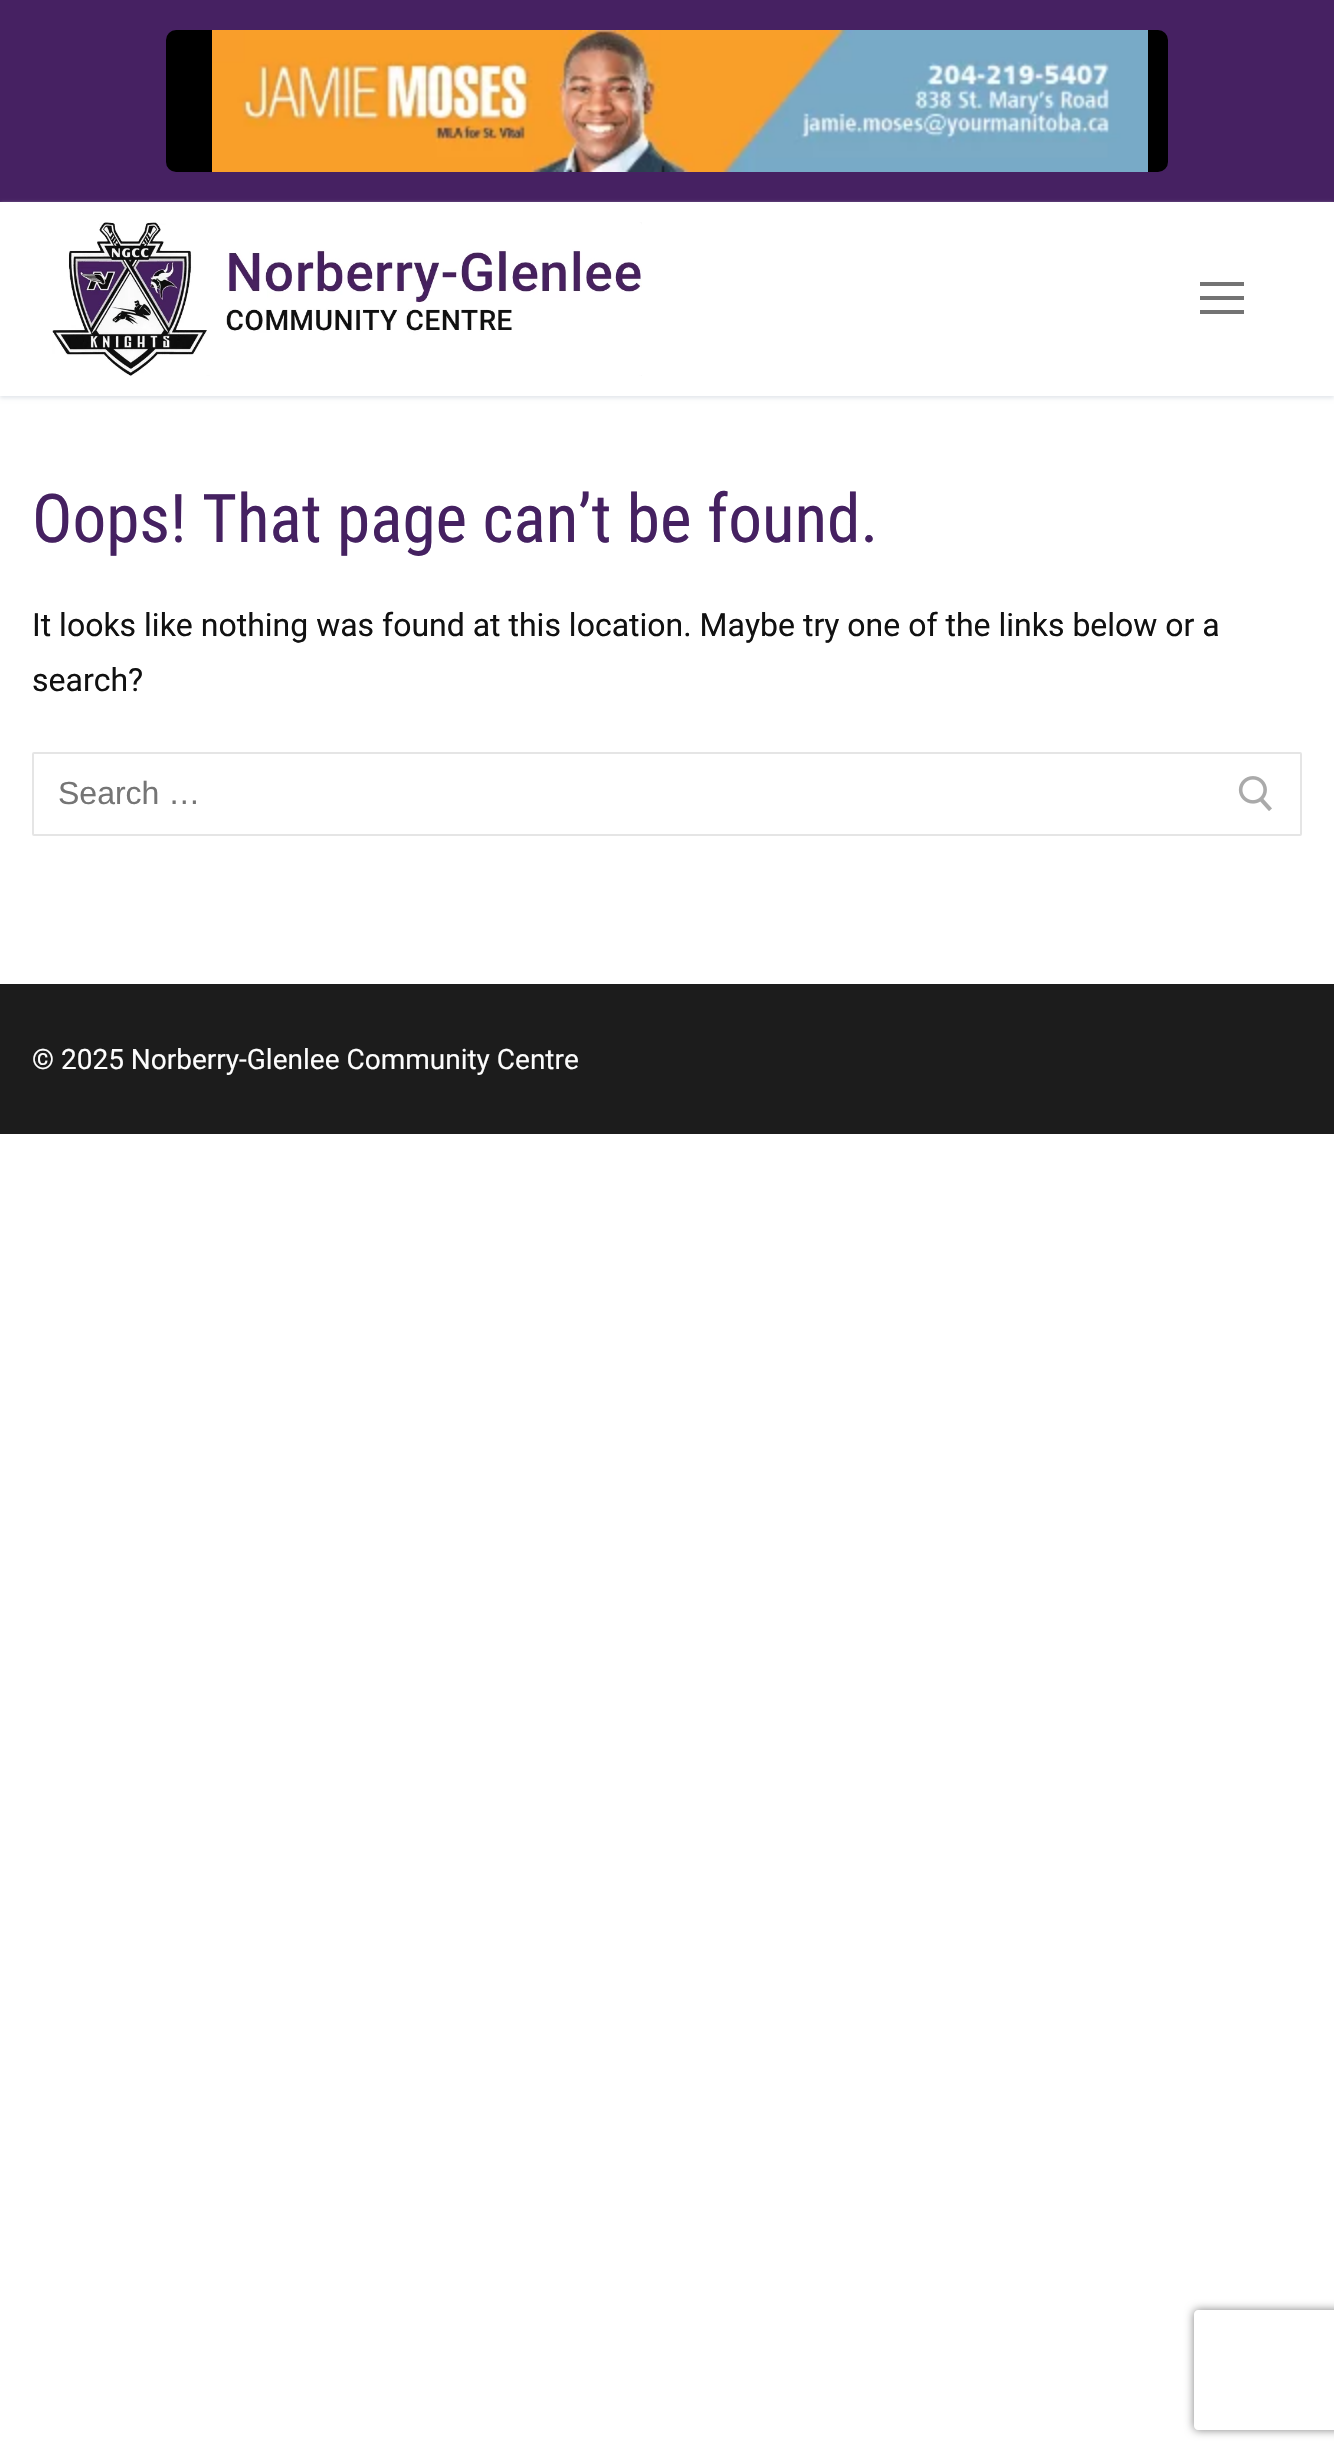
void draw(SkCanvas* canvas) {
    SkPaint paint;
    paint.setAntiAlias(true);
    auto face = [&](const char* family, int weight, float size, bool italic = false) {
        SkFontStyle style(weight, SkFontStyle::kNormal_Width,
            italic ? SkFontStyle::kItalic_Slant : SkFontStyle::kUpright_Slant);
        SkFont result(fontMgr->matchFamilyStyle(family, style), size);
        result.setSubpixel(true);
        return result;
    };
    auto write = [&](const char* s, float x, float y, const SkFont& font, SkColor color) {
        SkPaint ink(SkColor4f::FromColor(color));
        ink.setAntiAlias(true);
        canvas->drawString(s, x, y, font, ink);
    };
    auto block = [&](float x, float y, float w, float h, SkColor color) {
        SkPaint ink(SkColor4f::FromColor(color));
        ink.setAntiAlias(true);
        canvas->drawRect(SkRect::MakeXYWH(x, y, w, h), ink);
    };
    auto card = [&](float x, float y, float w, float h, float radius, SkColor color) {
        SkPaint ink(SkColor4f::FromColor(color));
        ink.setAntiAlias(true);
        canvas->drawRoundRect(SkRect::MakeXYWH(x, y, w, h), radius, radius, ink);
    };
    auto paste = [&](const char* path, float x, float y, float w, float h) {
        auto image = SkImages::DeferredFromEncodedData(SkData::MakeFromFileName(path));
        canvas->drawImageRect(image, SkRect::MakeXYWH(x, y, w, h), SkSamplingOptions());
    };
    canvas->clear(SK_ColorWHITE);
    block(0, 0, 1334, 202, SkColorSetRGB(70, 33, 98));
    card(166, 30, 1002, 142, 10, SK_ColorBLACK);
    paste("pic1.png", 212, 30, 936, 142);
    canvas->save();
    canvas->clipPath(SkPathBuilder(SkPathFillType::kEvenOdd).moveTo(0, 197).lineTo(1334, 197).lineTo(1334, 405).lineTo(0, 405).close().moveTo(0, 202).lineTo(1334, 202).lineTo(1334, 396).lineTo(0, 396).close().detach(), true);
    paint.setColor(SkColorSetRGB(225, 229, 234));
    paint.setMaskFilter(SkMaskFilter::MakeBlur(kNormal_SkBlurStyle, 2));
    canvas->drawRect(SkRect::MakeXYWH(0, 204, 1334, 194), paint);
    paint.setMaskFilter(nullptr);
    canvas->restore();
    paste("pic2.png", 52, 222, 590, 154);
    block(1200, 296, 44, 4, SkColorSetRGB(115, 115, 115));
    block(1200, 282, 44, 4, SkColorSetRGB(115, 115, 115));
    block(1200, 310, 44, 4, SkColorSetRGB(115, 115, 115));
    auto kFont1 = face("Roboto Condensed", 400, 67.25f);
    write("Oops! That page can’t be found.", 32, 542, kFont1, SkColorSetRGB(69, 33, 97));
    auto kFont2 = face("Roboto", 400, 32);
    write("It looks like nothing was found at this location. Maybe try one of the links below or a", 32, 636, kFont2, SkColorSetRGB(17, 17, 17));
    write("search?", 32, 691, kFont2, SkColorSetRGB(17, 17, 17));
    paint.setStyle(SkPaint::kStroke_Style);
    paint.setStrokeWidth(2);
    paint.setColor(SkColorSetRGB(229, 229, 229));
    canvas->drawRoundRect(SkRect::MakeXYWH(33, 753, 1268, 82), 1, 1, paint);
    auto kFont3 = face("Liberation Sans", 400, 32);
    write("Search …", 58, 804, kFont3, SkColorSetRGB(117, 117, 117));
    paste("pic3.png", 1238, 776, 34, 35);
    block(0, 984, 1334, 150, SkColorSetRGB(28, 28, 28));
    auto kFont4 = face("Roboto", 400, 28);
    write("© 2025 Norberry-Glenlee Community Centre", 32, 1069, kFont4, SkColorSetRGB(253, 253, 253));
    canvas->save();
    canvas->clipPath(SkPathBuilder(SkPathFillType::kEvenOdd).moveTo(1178, 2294).lineTo(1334, 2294).lineTo(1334, 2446).lineTo(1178, 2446).close().moveTo(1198, 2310).lineTo(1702, 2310).cubicTo(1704, 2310, 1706, 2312, 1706, 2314).lineTo(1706, 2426).cubicTo(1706, 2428, 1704, 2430, 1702, 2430).lineTo(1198, 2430).cubicTo(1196, 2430, 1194, 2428, 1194, 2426).lineTo(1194, 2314).cubicTo(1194, 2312, 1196, 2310, 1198, 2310).close().detach(), true);
    paint.setStyle(SkPaint::kFill_Style);
    paint.setColor(SkColorSetRGB(128, 128, 128));
    paint.setMaskFilter(SkMaskFilter::MakeBlur(kNormal_SkBlurStyle, 5));
    canvas->drawRoundRect(SkRect::MakeXYWH(1194, 2310, 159, 120), 4, 4, paint);
    paint.setMaskFilter(nullptr);
    canvas->restore();
}
